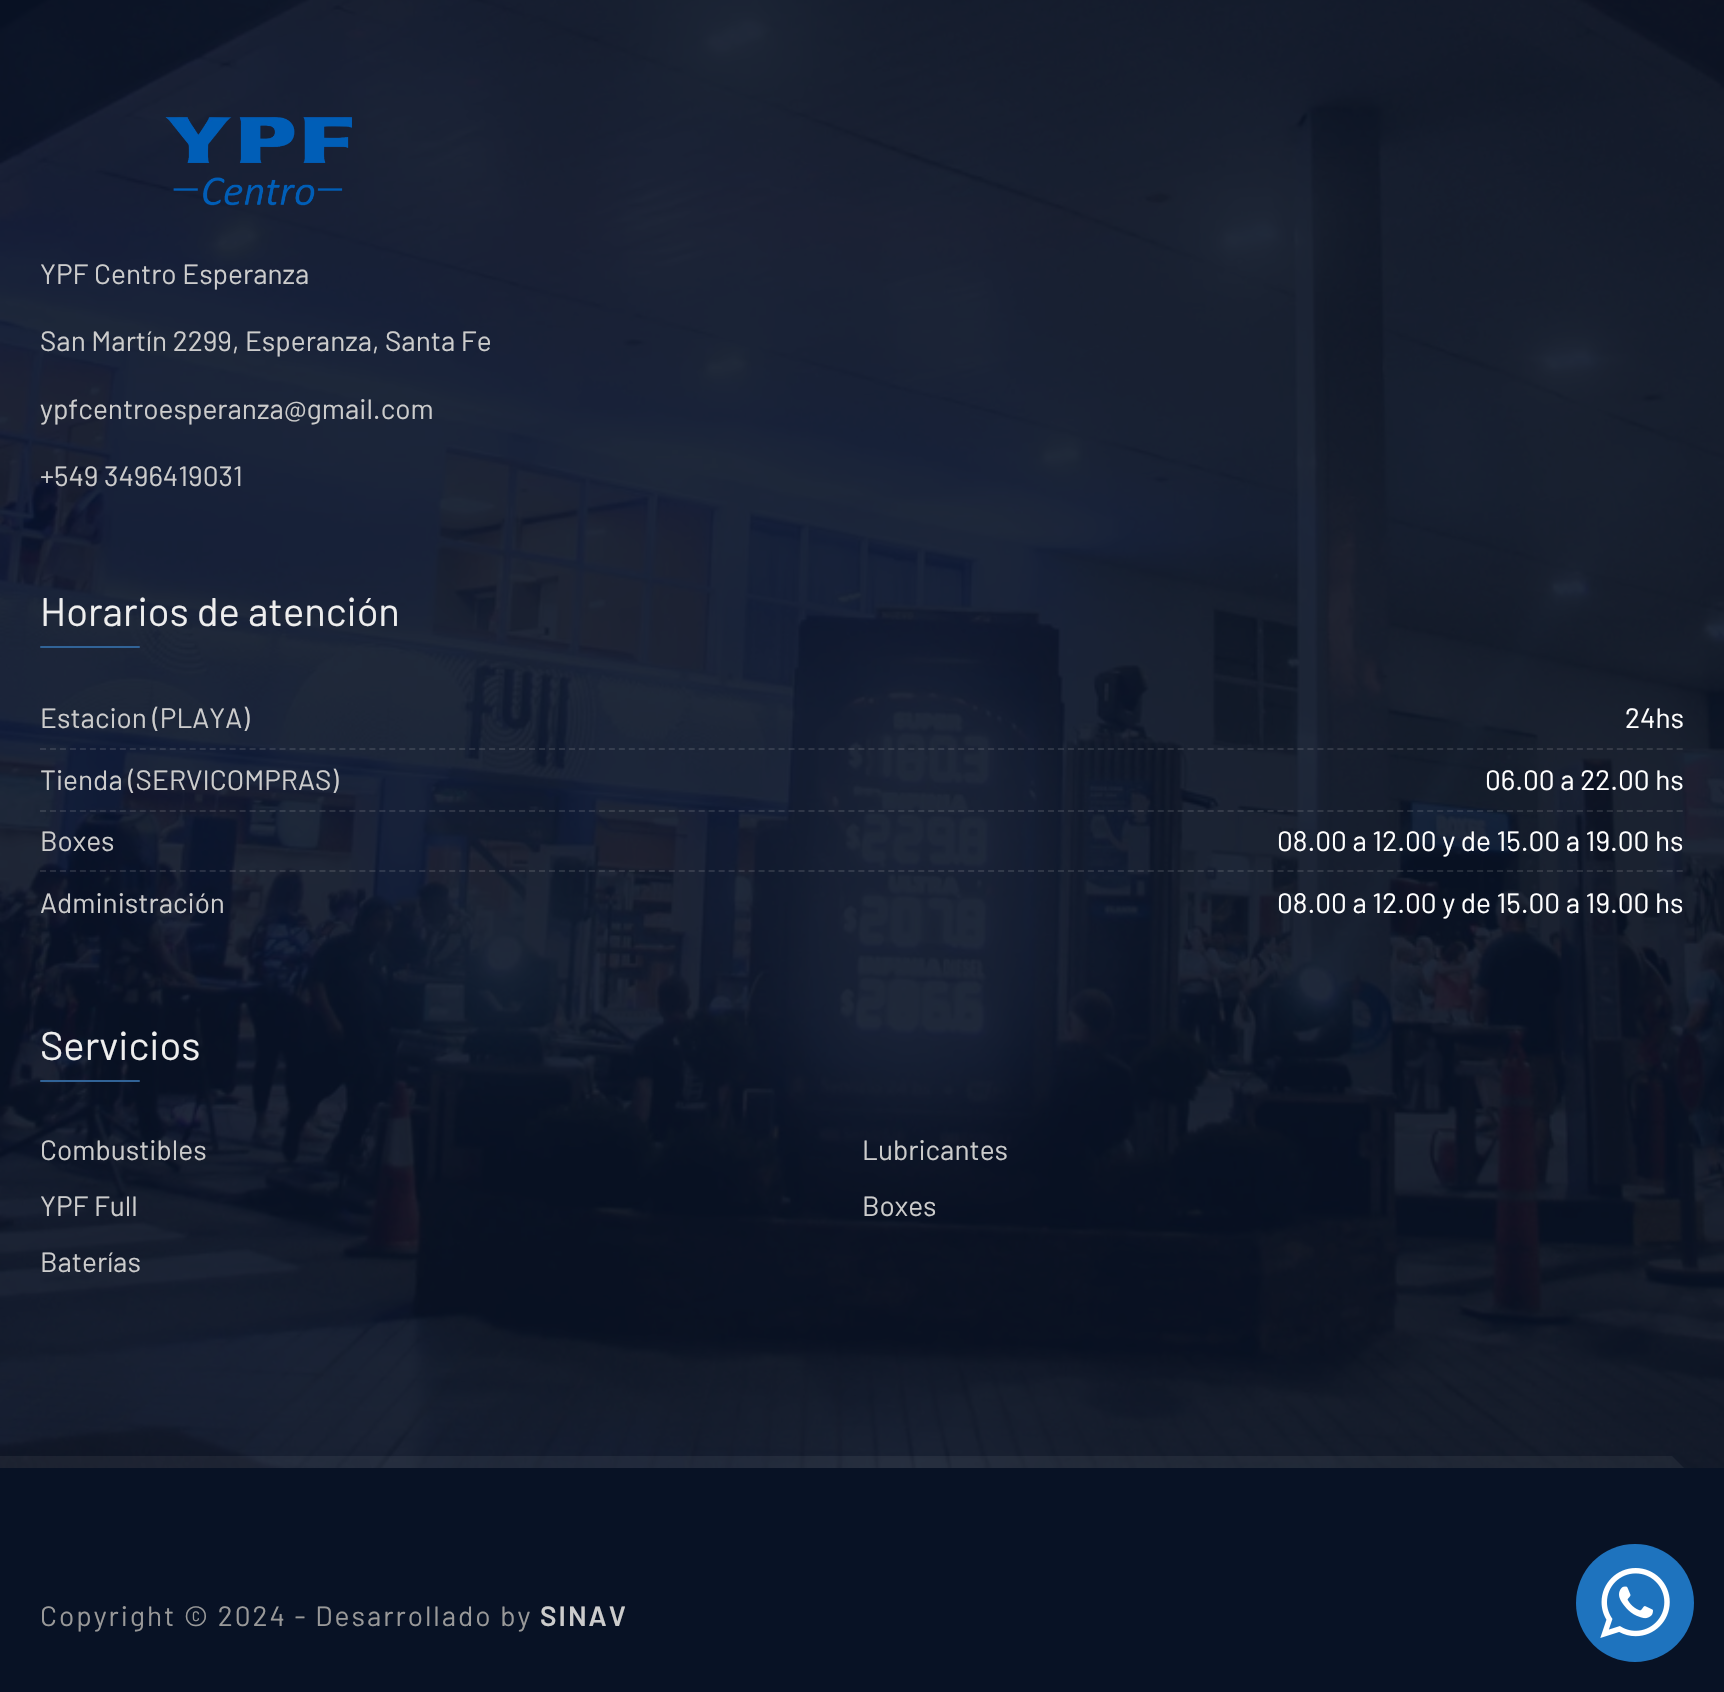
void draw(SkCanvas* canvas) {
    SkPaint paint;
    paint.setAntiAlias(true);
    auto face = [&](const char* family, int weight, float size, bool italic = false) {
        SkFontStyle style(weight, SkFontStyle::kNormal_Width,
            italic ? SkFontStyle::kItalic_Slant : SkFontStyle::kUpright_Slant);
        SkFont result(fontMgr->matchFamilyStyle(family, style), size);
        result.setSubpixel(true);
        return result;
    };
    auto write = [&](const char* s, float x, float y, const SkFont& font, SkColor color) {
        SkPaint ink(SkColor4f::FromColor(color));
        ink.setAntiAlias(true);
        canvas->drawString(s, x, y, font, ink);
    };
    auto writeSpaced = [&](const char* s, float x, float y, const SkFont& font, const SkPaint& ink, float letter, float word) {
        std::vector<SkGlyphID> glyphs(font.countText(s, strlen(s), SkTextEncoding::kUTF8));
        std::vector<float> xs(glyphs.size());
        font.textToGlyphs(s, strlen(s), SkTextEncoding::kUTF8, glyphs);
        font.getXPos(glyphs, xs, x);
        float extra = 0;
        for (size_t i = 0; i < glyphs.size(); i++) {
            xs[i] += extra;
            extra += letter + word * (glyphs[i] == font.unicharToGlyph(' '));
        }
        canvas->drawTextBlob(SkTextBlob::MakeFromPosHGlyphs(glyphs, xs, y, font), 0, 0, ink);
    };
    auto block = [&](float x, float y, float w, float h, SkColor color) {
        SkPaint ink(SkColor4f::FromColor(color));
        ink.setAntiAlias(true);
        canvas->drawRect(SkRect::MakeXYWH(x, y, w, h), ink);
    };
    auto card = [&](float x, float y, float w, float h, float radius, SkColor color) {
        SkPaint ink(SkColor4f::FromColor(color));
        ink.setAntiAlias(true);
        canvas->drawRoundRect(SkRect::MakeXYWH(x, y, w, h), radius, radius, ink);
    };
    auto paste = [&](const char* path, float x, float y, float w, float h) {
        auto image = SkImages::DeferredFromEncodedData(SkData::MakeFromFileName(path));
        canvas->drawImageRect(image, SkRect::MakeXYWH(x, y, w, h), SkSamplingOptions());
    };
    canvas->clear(SK_ColorWHITE);
    paste("pic1.png", 0, 0, 1724, 1468);
    paste("pic2.png", 165, 117, 187, 89);
    auto kFont1 = face("Barlow", 400, 28);
    write("YPF Centro Esperanza", 40, 284, kFont1, SkColorSetRGB(204, 204, 204));
    write("San Martín 2299, Esperanza, Santa Fe", 40, 351, kFont1, SkColorSetRGB(204, 204, 204));
    write("ypfcentroesperanza@gmail.com", 40, 419, kFont1, SkColorSetRGB(204, 204, 204));
    write("+549 3496419031", 40, 486, kFont1, SkColorSetRGB(204, 204, 204));
    auto kFont2 = face("Barlow", 400, 40);
    write("Horarios de atención", 40, 626, kFont2, SkColorSetRGB(238, 238, 238));
    card(40, 646, 100, 2, 1, SkColorSetRGB(49, 99, 151));
    paint.setStyle(SkPaint::kStroke_Style);
    paint.setStrokeWidth(2);
    paint.setColor(SkColorSetARGB(38, 204, 204, 204));
    paint.setPathEffect(SkDashPathEffect::Make({{6, 3.98f}}, 0));
    canvas->drawPath(SkPathBuilder().moveTo(40, 749).lineTo(1684, 749).detach(), paint);
    paint.setPathEffect(nullptr);
    write("Estacion (PLAYA)", 40, 728, kFont1, SkColorSetRGB(204, 204, 204));
    write("24hs", 1625, 728, kFont1, SK_ColorWHITE);
    paint.setPathEffect(SkDashPathEffect::Make({{6, 3.98f}}, 0));
    canvas->drawPath(SkPathBuilder().moveTo(40, 811).lineTo(1684, 811).detach(), paint);
    paint.setPathEffect(nullptr);
    write("Tienda (SERVICOMPRAS)", 40, 790, kFont1, SkColorSetRGB(204, 204, 204));
    write("06.00 a 22.00 hs", 1485, 790, kFont1, SK_ColorWHITE);
    paint.setPathEffect(SkDashPathEffect::Make({{6, 3.98f}}, 0));
    canvas->drawPath(SkPathBuilder().moveTo(40, 871).lineTo(1684, 871).detach(), paint);
    paint.setPathEffect(nullptr);
    write("Boxes", 40, 851, kFont1, SkColorSetRGB(204, 204, 204));
    write("08.00 a 12.00 y de 15.00 a 19.00 hs", 1277, 851, kFont1, SK_ColorWHITE);
    write("Administración", 40, 913, kFont1, SkColorSetRGB(204, 204, 204));
    write("08.00 a 12.00 y de 15.00 a 19.00 hs", 1277, 913, kFont1, SK_ColorWHITE);
    write("Servicios", 40, 1060, kFont2, SkColorSetRGB(238, 238, 238));
    card(40, 1080, 100, 2, 1, SkColorSetRGB(49, 99, 151));
    write("Combustibles", 40, 1160, kFont1, SkColorSetRGB(204, 204, 204));
    write("Lubricantes", 862, 1160, kFont1, SkColorSetRGB(204, 204, 204));
    write("YPF Full", 40, 1216, kFont1, SkColorSetRGB(204, 204, 204));
    write("Boxes", 862, 1216, kFont1, SkColorSetRGB(204, 204, 204));
    write("Baterías", 40, 1272, kFont1, SkColorSetRGB(204, 204, 204));
    paint.setStyle(SkPaint::kFill_Style);
    paint.setColor(SkColorSetRGB(31, 38, 52));
    canvas->drawPath(SkPathBuilder().moveTo(1672, 1468).lineTo(1672, 1456).lineTo(1684, 1468).close().detach(), paint);
    block(0, 1456, 40, 12, SkColorSetARGB(13, 255, 255, 255));
    block(40, 1456, 1632, 12, SkColorSetARGB(13, 255, 255, 255));
    block(0, 1468, 1724, 224, SkColorSetRGB(8, 18, 37));
    paint.setColor(SkColorSetRGB(153, 153, 153));
    writeSpaced("Copyright © 2024 - Desarrollado by", 40, 1626, kFont1, paint, 2, 0);
    auto kFont3 = face("Barlow", 600, 28);
    paint.setColor(SkColorSetRGB(204, 204, 204));
    writeSpaced("SINAV", 540, 1626, kFont3, paint, 2, 0);
    paint.setColor(SkColorSetRGB(30, 115, 190));
    canvas->drawCircle(1635, 1603, 59, paint);
    paste("pic3.png", 1600, 1568, 70, 70);
}
